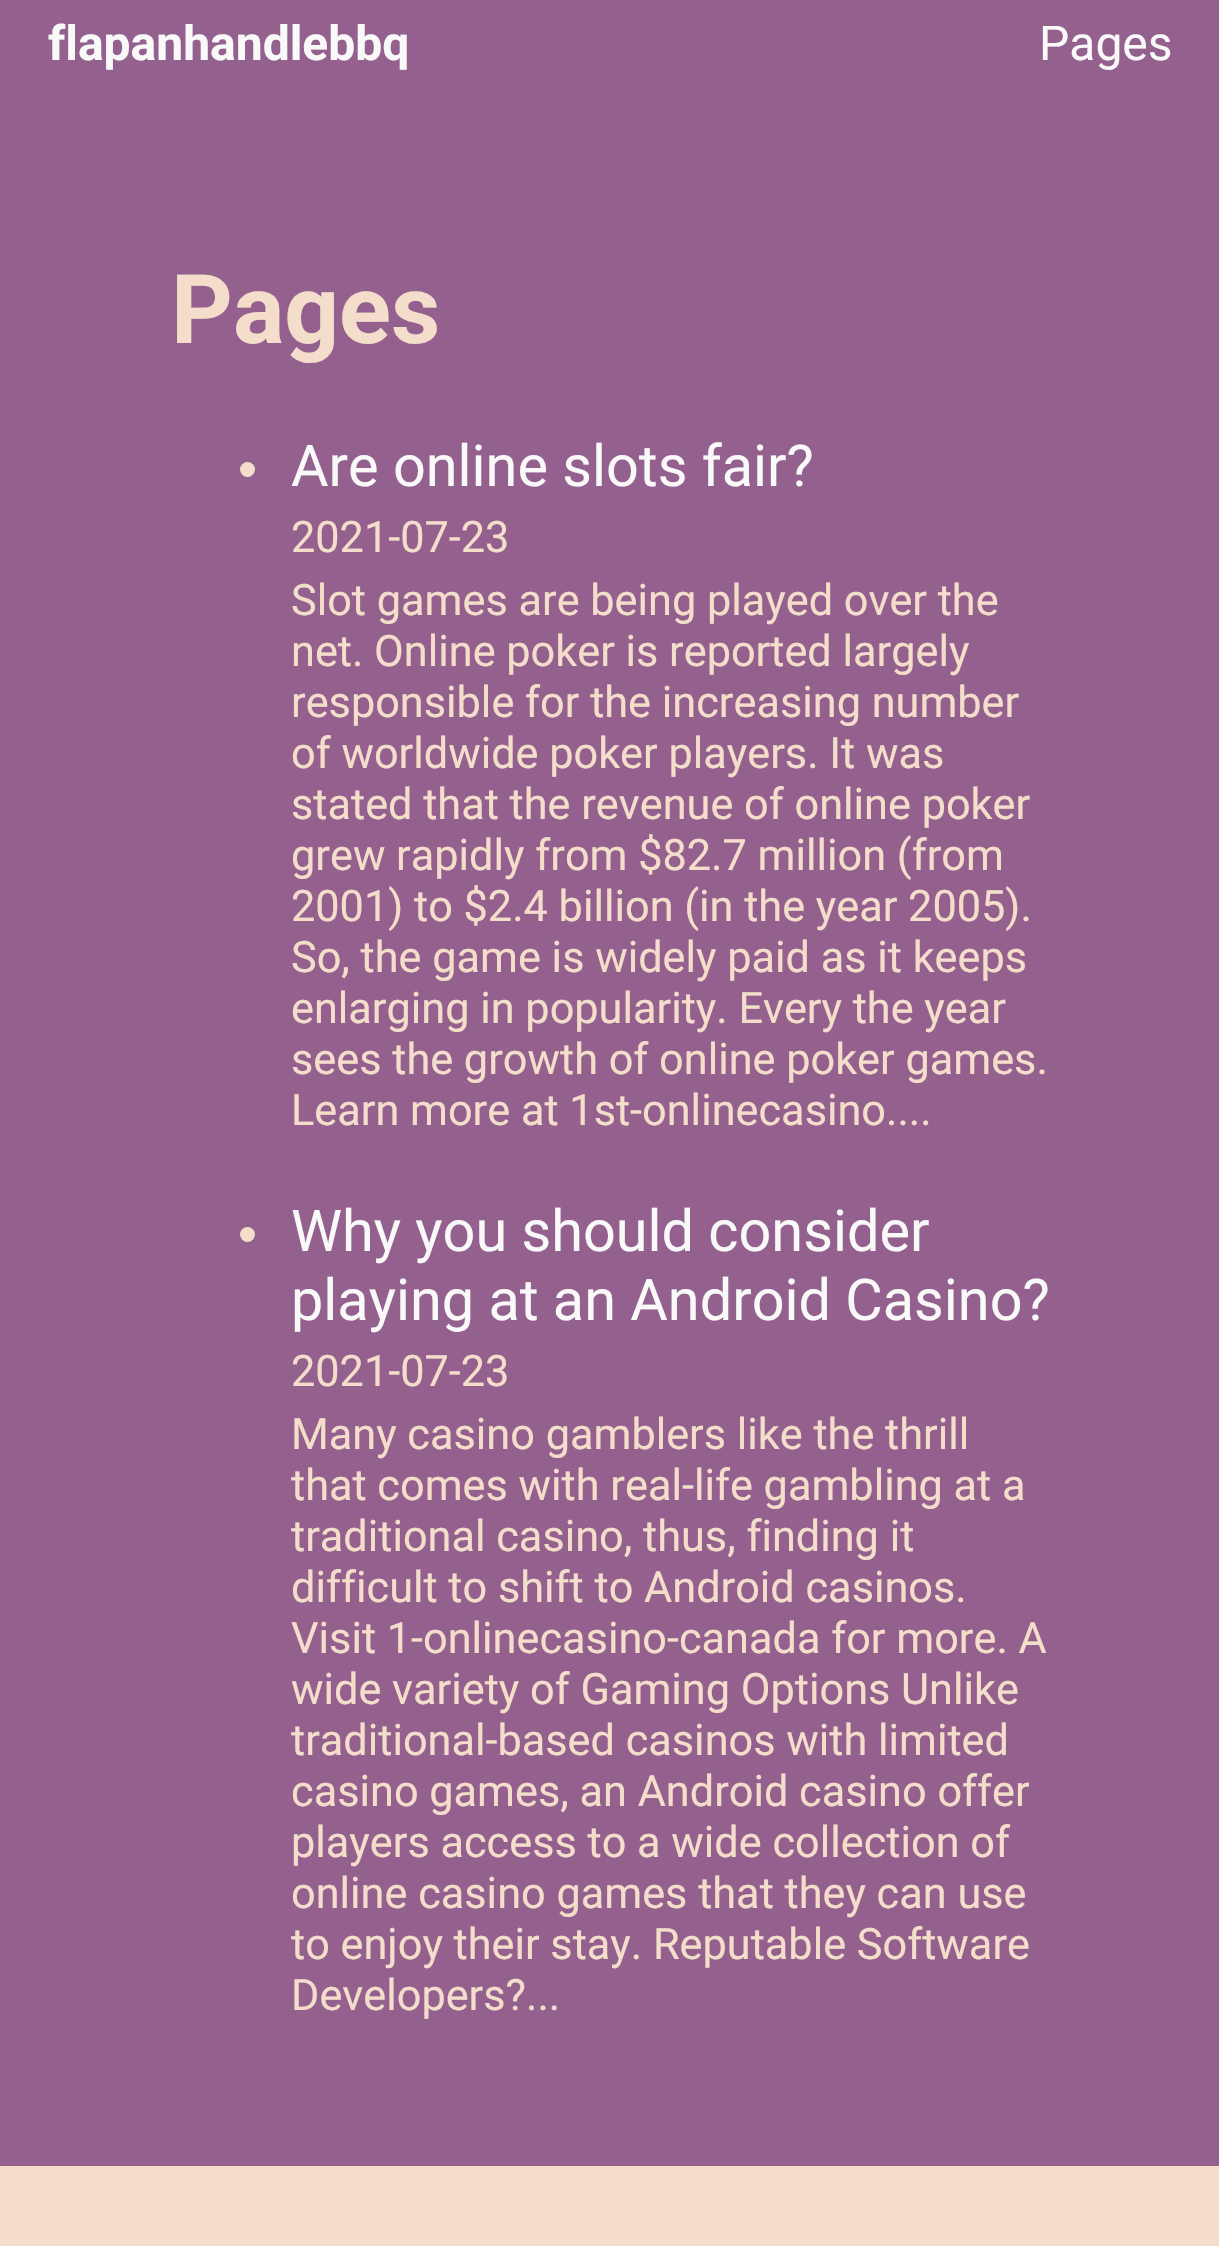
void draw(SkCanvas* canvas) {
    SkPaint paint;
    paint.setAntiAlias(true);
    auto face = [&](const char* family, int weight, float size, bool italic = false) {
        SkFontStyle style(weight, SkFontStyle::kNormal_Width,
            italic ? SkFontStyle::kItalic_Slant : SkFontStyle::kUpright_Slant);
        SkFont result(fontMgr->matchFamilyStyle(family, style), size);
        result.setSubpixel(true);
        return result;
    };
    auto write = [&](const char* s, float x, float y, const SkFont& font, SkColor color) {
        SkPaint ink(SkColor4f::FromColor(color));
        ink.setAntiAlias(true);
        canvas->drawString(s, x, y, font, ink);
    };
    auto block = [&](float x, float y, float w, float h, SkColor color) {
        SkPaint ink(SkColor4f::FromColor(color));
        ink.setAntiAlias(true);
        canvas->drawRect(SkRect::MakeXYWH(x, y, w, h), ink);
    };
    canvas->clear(SkColorSetRGB(148, 97, 142));
    auto kFont1 = face("Roboto", 700, 48);
    write("flapanhandlebbq", 48, 60, kFont1, SkColorSetRGB(249, 249, 249));
    auto kFont2 = face("Roboto", 400, 48);
    write("Pages", 1039, 60, kFont2, SkColorSetRGB(249, 249, 249));
    auto kFont3 = face("Roboto", 700, 96);
    write("Pages", 171, 343, kFont3, SkColorSetRGB(244, 222, 203));
    paint.setColor(SkColorSetRGB(244, 222, 203));
    canvas->drawCircle(247.5f, 469.5f, 7.5f, paint);
    auto kFont4 = face("Roboto", 400, 57.6f);
    write("Are online slots fair?", 291, 486, kFont4, SkColorSetRGB(249, 249, 249));
    auto kFont5 = face("Roboto", 400, 43.25f);
    write("2021-07-23", 291, 552, kFont5, SkColorSetRGB(244, 222, 203));
    write("Slot games are being played over the", 291, 615, kFont5, SkColorSetRGB(244, 222, 203));
    write("net. Online poker is reported largely", 291, 666, kFont5, SkColorSetRGB(244, 222, 203));
    write("responsible for the increasing number", 291, 717, kFont5, SkColorSetRGB(244, 222, 203));
    write("of worldwide poker players. It was", 291, 768, kFont5, SkColorSetRGB(244, 222, 203));
    write("stated that the revenue of online poker", 291, 819, kFont5, SkColorSetRGB(244, 222, 203));
    write("grew rapidly from $82.7 million (from", 291, 870, kFont5, SkColorSetRGB(244, 222, 203));
    write("2001) to $2.4 billion (in the year 2005).", 291, 921, kFont5, SkColorSetRGB(244, 222, 203));
    write("So, the game is widely paid as it keeps", 291, 972, kFont5, SkColorSetRGB(244, 222, 203));
    write("enlarging in popularity. Every the year", 291, 1023, kFont5, SkColorSetRGB(244, 222, 203));
    write("sees the growth of online poker games.", 291, 1074, kFont5, SkColorSetRGB(244, 222, 203));
    write("Learn more at 1st-onlinecasino....", 291, 1125, kFont5, SkColorSetRGB(244, 222, 203));
    canvas->drawCircle(247.5f, 1234.5f, 7.5f, paint);
    write("Why you should consider", 291, 1251, kFont4, SkColorSetRGB(249, 249, 249));
    write("playing at an Android Casino?", 291, 1320, kFont4, SkColorSetRGB(249, 249, 249));
    write("2021-07-23", 291, 1386, kFont5, SkColorSetRGB(244, 222, 203));
    write("Many casino gamblers like the thrill", 291, 1449, kFont5, SkColorSetRGB(244, 222, 203));
    write("that comes with real-life gambling at a", 291, 1500, kFont5, SkColorSetRGB(244, 222, 203));
    write("traditional casino, thus, finding it", 291, 1551, kFont5, SkColorSetRGB(244, 222, 203));
    write("difficult to shift to Android casinos.", 291, 1602, kFont5, SkColorSetRGB(244, 222, 203));
    write("Visit 1-onlinecasino-canada for more. A", 291, 1653, kFont5, SkColorSetRGB(244, 222, 203));
    write("wide variety of Gaming Options Unlike", 291, 1704, kFont5, SkColorSetRGB(244, 222, 203));
    write("traditional-based casinos with limited", 291, 1755, kFont5, SkColorSetRGB(244, 222, 203));
    write("casino games, an Android casino offer", 291, 1806, kFont5, SkColorSetRGB(244, 222, 203));
    write("players access to a wide collection of", 291, 1857, kFont5, SkColorSetRGB(244, 222, 203));
    write("online casino games that they can use", 291, 1908, kFont5, SkColorSetRGB(244, 222, 203));
    write("to enjoy their stay. Reputable Software", 291, 1959, kFont5, SkColorSetRGB(244, 222, 203));
    write("Developers?...", 291, 2010, kFont5, SkColorSetRGB(244, 222, 203));
    block(0, 2166, 1219, 80, SkColorSetRGB(244, 222, 203));
}
